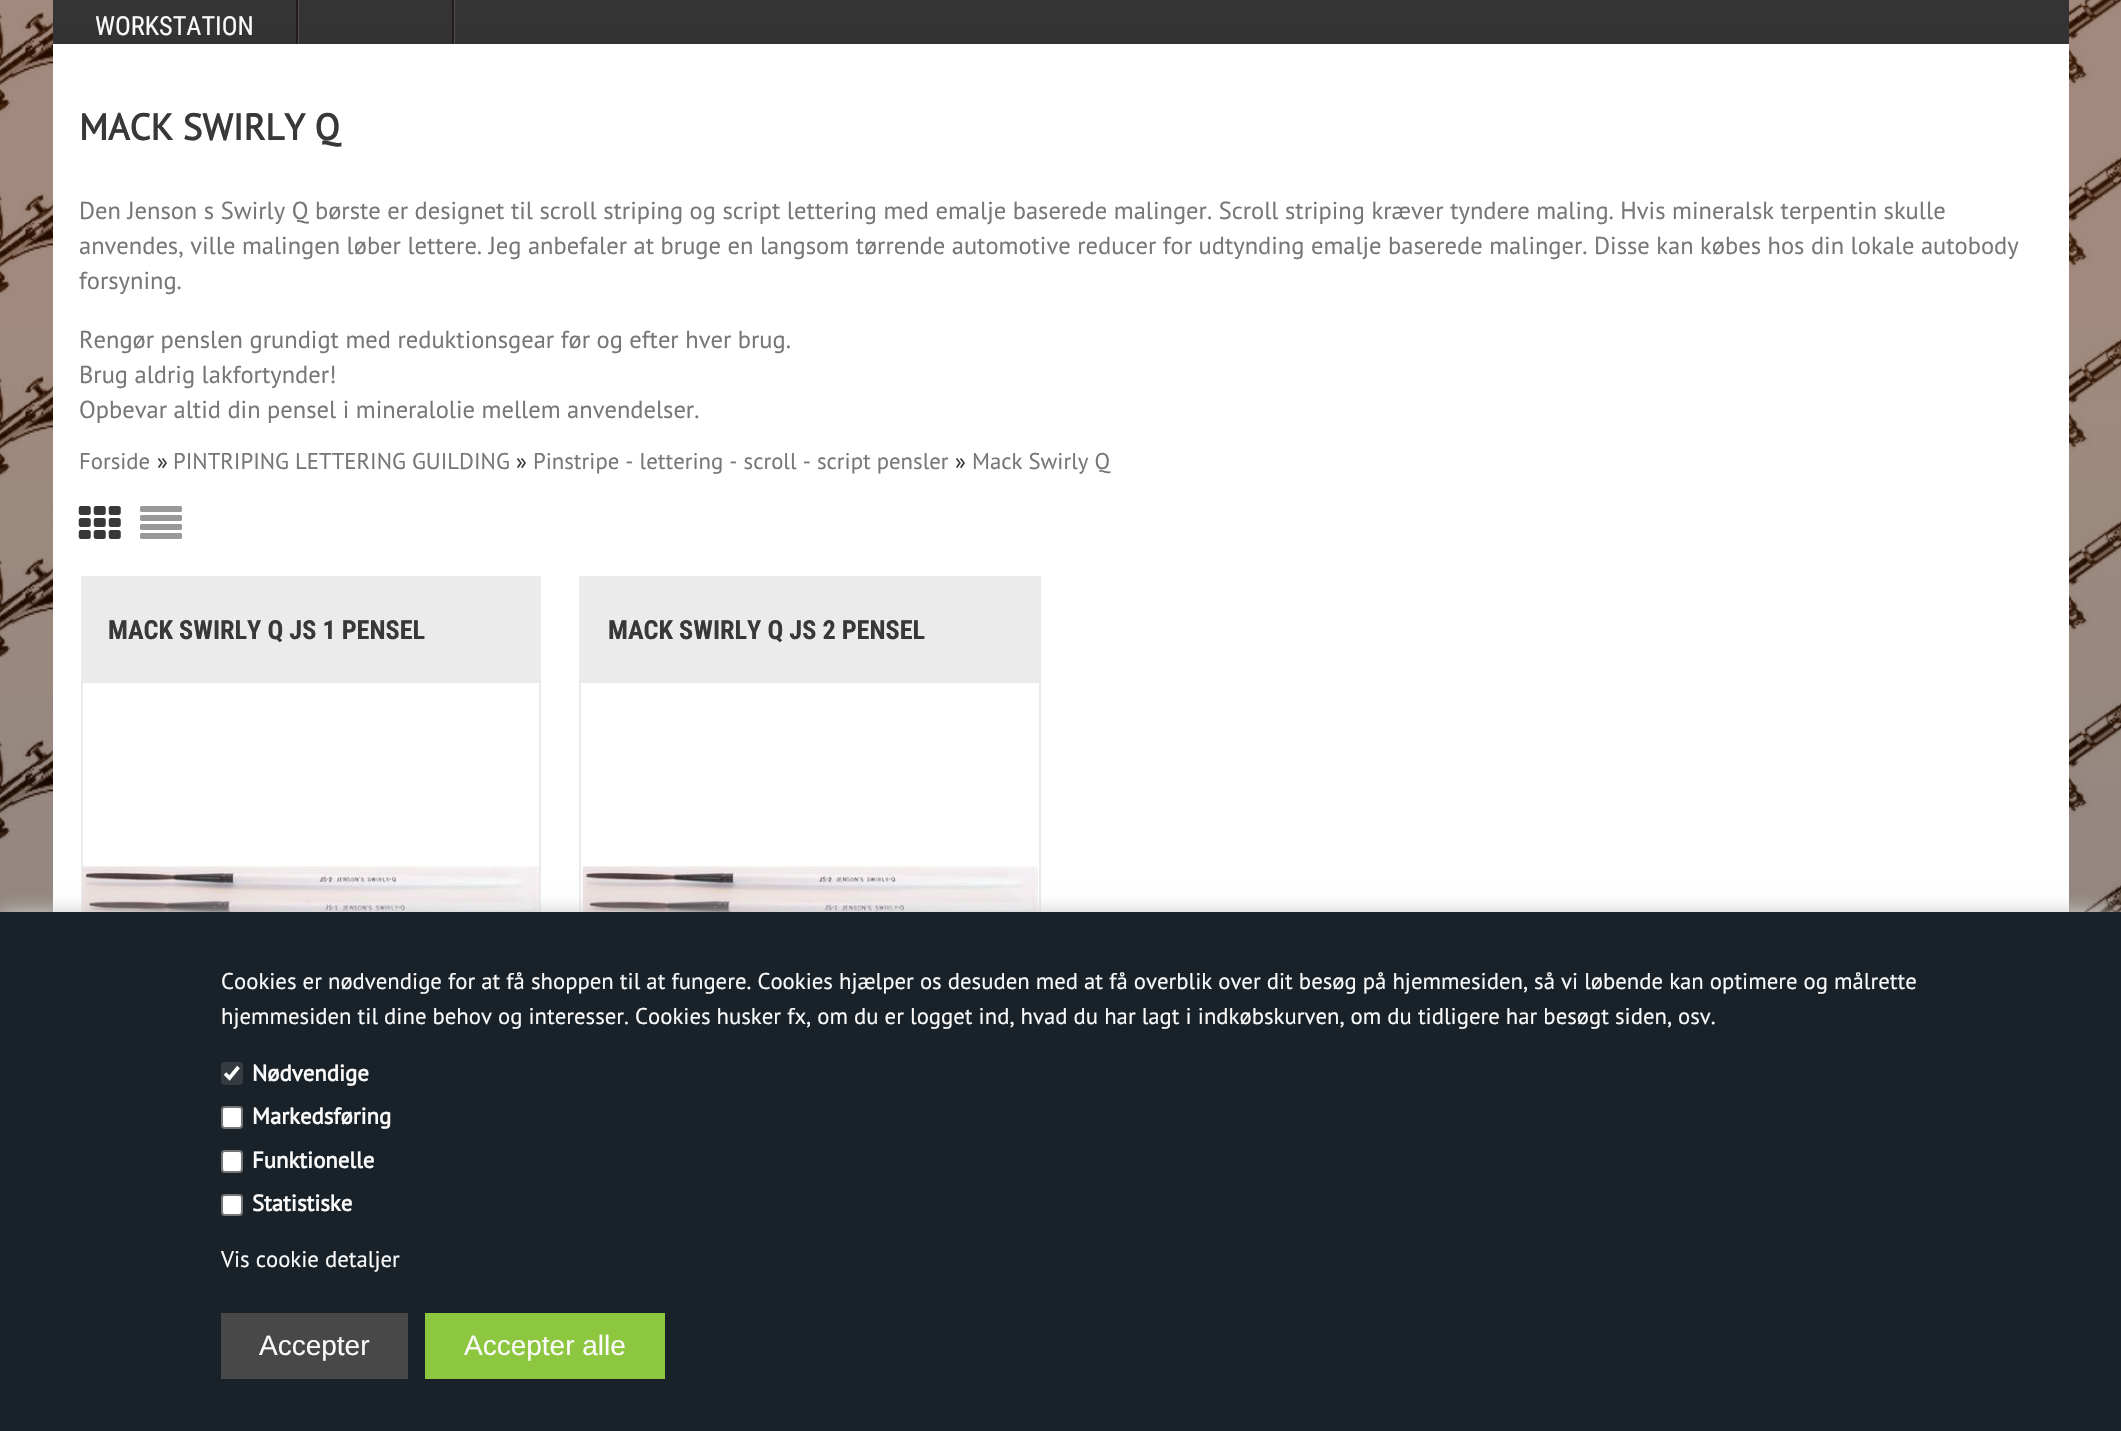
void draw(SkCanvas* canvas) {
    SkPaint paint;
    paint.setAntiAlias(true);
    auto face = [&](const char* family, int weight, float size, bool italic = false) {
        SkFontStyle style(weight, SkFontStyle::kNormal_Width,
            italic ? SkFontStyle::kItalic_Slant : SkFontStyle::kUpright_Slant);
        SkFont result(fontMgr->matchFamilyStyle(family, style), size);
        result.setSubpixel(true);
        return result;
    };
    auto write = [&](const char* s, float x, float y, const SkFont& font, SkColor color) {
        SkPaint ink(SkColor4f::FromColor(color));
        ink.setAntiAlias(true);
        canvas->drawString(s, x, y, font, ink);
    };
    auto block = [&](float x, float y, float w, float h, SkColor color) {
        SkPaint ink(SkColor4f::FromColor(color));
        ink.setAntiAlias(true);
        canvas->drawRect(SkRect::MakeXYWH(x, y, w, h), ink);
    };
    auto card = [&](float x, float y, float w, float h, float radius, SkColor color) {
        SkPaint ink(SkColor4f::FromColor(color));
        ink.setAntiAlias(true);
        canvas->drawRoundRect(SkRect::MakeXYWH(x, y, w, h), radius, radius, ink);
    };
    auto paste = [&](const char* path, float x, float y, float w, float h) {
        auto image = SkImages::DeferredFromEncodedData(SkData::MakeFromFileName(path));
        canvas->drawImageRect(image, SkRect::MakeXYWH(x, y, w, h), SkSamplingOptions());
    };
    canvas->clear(SK_ColorWHITE);
    paste("pic1.png", 0, 0, 2121, 912);
    {
        const SkColor colors[] = {SkColorSetRGB(58, 58, 58), SkColorSetRGB(51, 51, 51)};
        const float stops[] = {0, 1};
        const SkPoint ends[] = {{1061, -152}, {1061, 44}};
        paint.setShader(SkGradientShader::MakeLinear(ends, colors, stops, 2, SkTileMode::kClamp));
        paint.setAlpha(255);
    }
    canvas->drawRect(SkRect::MakeXYWH(53, 0, 2016, 44), paint);
    paint.setShader(nullptr);
    paint.setColor(SkColorSetRGB(81, 81, 81));
    canvas->drawPath(SkPathBuilder().moveTo(54, 44).lineTo(299, 44).lineTo(299, -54).lineTo(298, -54).lineTo(298, 44).close().detach(), paint);
    block(296, 0, 2, 44, SkColorSetRGB(35, 26, 26));
    auto kFont1 = face("Roboto Condensed", 400, 26.25f);
    write("WORKSTATION", 95, 35, kFont1, SkColorSetRGB(250, 250, 250));
    canvas->drawPath(SkPathBuilder().moveTo(299, 44).lineTo(455, 44).lineTo(455, -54).lineTo(453, -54).lineTo(453, 44).close().detach(), paint);
    block(452, 0, 2, 44, SkColorSetRGB(35, 26, 26));
    block(53, 44, 2016, 868, SK_ColorWHITE);
    auto kFont2 = face("PT Sans", 700, 36.75f);
    write("MACK SWIRLY Q", 79, 140, kFont2, SkColorSetRGB(56, 56, 56));
    auto kFont3 = face("PT Sans", 400, 24.5f);
    write("Den Jenson s Swirly Q børste er designet til scroll striping og script lettering med emalje baserede malinger. Scroll striping kræver tyndere maling. Hvis mineralsk terpentin skulle", 79, 219, kFont3, SkColorSetRGB(119, 119, 119));
    write("anvendes, ville malingen løber lettere. Jeg anbefaler at bruge en langsom tørrende automotive reducer for udtynding emalje baserede malinger. Disse kan købes hos din lokale autobody", 79, 254, kFont3, SkColorSetRGB(119, 119, 119));
    write("forsyning.", 79, 289, kFont3, SkColorSetRGB(119, 119, 119));
    write("Rengør penslen grundigt med reduktionsgear før og efter hver brug.", 79, 348, kFont3, SkColorSetRGB(119, 119, 119));
    write("Brug aldrig lakfortynder!", 79, 383, kFont3, SkColorSetRGB(119, 119, 119));
    write("Opbevar altid din pensel i mineralolie mellem anvendelser.", 79, 418, kFont3, SkColorSetRGB(119, 119, 119));
    auto kFont4 = face("PT Sans", 400, 22.75f);
    write("Forside", 79, 469, kFont4, SkColorSetRGB(119, 119, 119));
    write("»", 157, 469, kFont4, SkColorSetRGB(56, 56, 56));
    write("PINTRIPING LETTERING GUILDING", 173, 469, kFont4, SkColorSetRGB(119, 119, 119));
    write("»", 516, 469, kFont4, SkColorSetRGB(56, 56, 56));
    write("Pinstripe - lettering - scroll - script pensler", 533, 469, kFont4, SkColorSetRGB(119, 119, 119));
    write("»", 955, 469, kFont4, SkColorSetRGB(56, 56, 56));
    write("Mack Swirly Q", 972, 469, kFont4, SkColorSetRGB(119, 119, 119));
    paste("pic2.png", 78, 506, 43, 33);
    paste("pic3.png", 140, 506, 42, 33);
    paint.setStyle(SkPaint::kStroke_Style);
    paint.setStrokeWidth(2);
    paint.setColor(SkColorSetRGB(235, 235, 235));
    canvas->drawRect(SkRect::MakeXYWH(82, 577, 458, 717), paint);
    block(83, 578, 456, 105, SkColorSetRGB(235, 235, 235));
    auto kFont5 = face("Roboto Condensed", 700, 26.25f);
    write("MACK SWIRLY Q JS 1 PENSEL", 108, 639, kFont5, SkColorSetRGB(56, 56, 56));
    paste("pic4.png", 82, 866, 457, 46);
    canvas->drawRect(SkRect::MakeXYWH(580, 577, 460, 717), paint);
    block(581, 578, 458, 105, SkColorSetRGB(235, 235, 235));
    write("MACK SWIRLY Q JS 2 PENSEL", 608, 639, kFont5, SkColorSetRGB(56, 56, 56));
    paste("pic5.png", 582, 866, 456, 46);
    paint.setStyle(SkPaint::kFill_Style);
    paint.setColor(SkColorSetRGB(204, 204, 204));
    paint.setMaskFilter(SkMaskFilter::MakeBlur(kNormal_SkBlurStyle, 9));
    canvas->drawRect(SkRect::MakeXYWH(0, 912, 2121, 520), paint);
    paint.setMaskFilter(nullptr);
    block(0, 912, 2121, 519, SkColorSetRGB(25, 34, 41));
    write("Cookies er nødvendige for at få shoppen til at fungere. Cookies hjælper os desuden med at få overblik over dit besøg på hjemmesiden, så vi løbende kan optimere og målrette", 221, 989, kFont4, SkColorSetRGB(250, 250, 250));
    write("hjemmesiden til dine behov og interesser. Cookies husker fx, om du er logget ind, hvad du har lagt i indkøbskurven, om du tidligere har besøgt siden, osv.", 221, 1024, kFont4, SkColorSetRGB(250, 250, 250));
    card(221, 1062, 22, 23, 4, SkColorSetRGB(53, 59, 64));
    paint.setStyle(SkPaint::kStroke_Style);
    paint.setStrokeWidth(3.6f);
    paint.setColor(SK_ColorWHITE);
    canvas->drawPath(SkPathBuilder().moveTo(225, 1073.5f).lineTo(229.5f, 1078).lineTo(238.5f, 1067).detach(), paint);
    auto kFont6 = face("PT Sans", 700, 22.75f);
    write("Nødvendige", 252, 1081, kFont6, SkColorSetRGB(250, 250, 250));
    paint.setStyle(SkPaint::kFill_Style);
    canvas->drawRoundRect(SkRect::MakeXYWH(222, 1107, 20, 21), 3, 3, paint);
    paint.setStyle(SkPaint::kStroke_Style);
    paint.setStrokeWidth(2);
    paint.setColor(SkColorSetRGB(118, 118, 118));
    canvas->drawRoundRect(SkRect::MakeXYWH(222, 1107, 20, 21), 3, 3, paint);
    write("Markedsføring", 252, 1124, kFont6, SkColorSetRGB(250, 250, 250));
    paint.setStyle(SkPaint::kFill_Style);
    paint.setColor(SK_ColorWHITE);
    canvas->drawRoundRect(SkRect::MakeXYWH(222, 1151, 20, 21), 3, 3, paint);
    paint.setStyle(SkPaint::kStroke_Style);
    paint.setColor(SkColorSetRGB(118, 118, 118));
    canvas->drawRoundRect(SkRect::MakeXYWH(222, 1151, 20, 21), 3, 3, paint);
    write("Funktionelle", 252, 1168, kFont6, SkColorSetRGB(250, 250, 250));
    paint.setStyle(SkPaint::kFill_Style);
    paint.setColor(SK_ColorWHITE);
    canvas->drawRoundRect(SkRect::MakeXYWH(222, 1195, 20, 20), 3, 3, paint);
    paint.setStyle(SkPaint::kStroke_Style);
    paint.setColor(SkColorSetRGB(118, 118, 118));
    canvas->drawRoundRect(SkRect::MakeXYWH(222, 1195, 20, 20), 3, 3, paint);
    write("Statistiske", 252, 1211, kFont6, SkColorSetRGB(250, 250, 250));
    write("Vis cookie detaljer", 221, 1267, kFont4, SkColorSetRGB(250, 250, 250));
    block(221, 1313, 187, 66, SkColorSetRGB(72, 72, 72));
    auto kFont7 = face("Liberation Sans", 400, 28);
    write("Accepter", 259, 1355, kFont7, SkColorSetRGB(250, 250, 250));
    block(425, 1313, 240, 66, SkColorSetRGB(141, 198, 63));
    write("Accepter alle", 464, 1355, kFont7, SkColorSetRGB(250, 250, 250));
}
